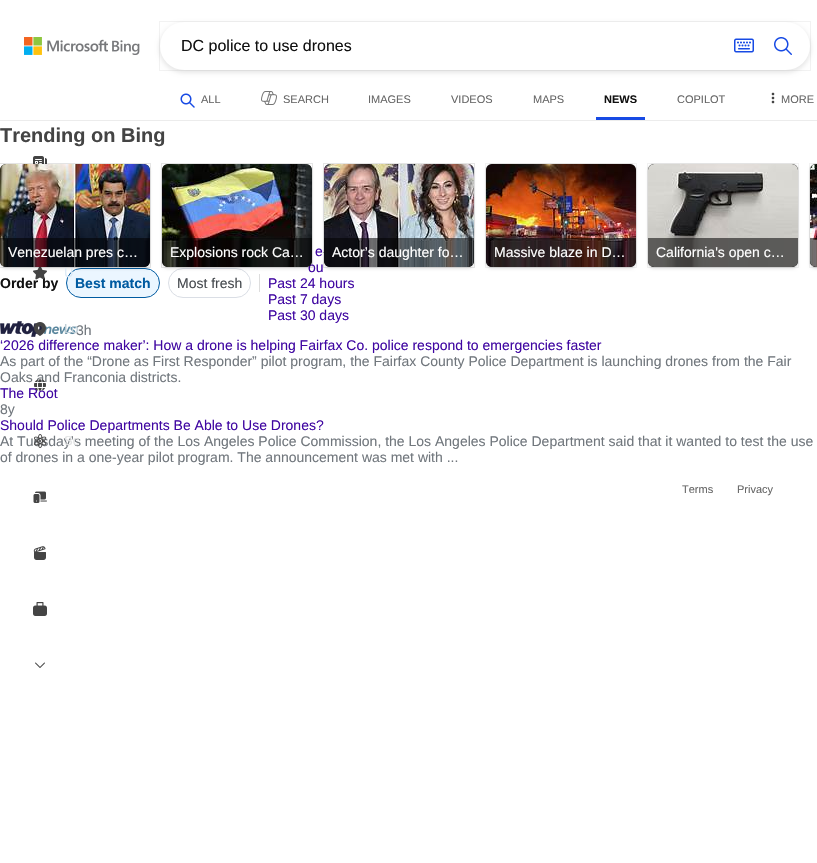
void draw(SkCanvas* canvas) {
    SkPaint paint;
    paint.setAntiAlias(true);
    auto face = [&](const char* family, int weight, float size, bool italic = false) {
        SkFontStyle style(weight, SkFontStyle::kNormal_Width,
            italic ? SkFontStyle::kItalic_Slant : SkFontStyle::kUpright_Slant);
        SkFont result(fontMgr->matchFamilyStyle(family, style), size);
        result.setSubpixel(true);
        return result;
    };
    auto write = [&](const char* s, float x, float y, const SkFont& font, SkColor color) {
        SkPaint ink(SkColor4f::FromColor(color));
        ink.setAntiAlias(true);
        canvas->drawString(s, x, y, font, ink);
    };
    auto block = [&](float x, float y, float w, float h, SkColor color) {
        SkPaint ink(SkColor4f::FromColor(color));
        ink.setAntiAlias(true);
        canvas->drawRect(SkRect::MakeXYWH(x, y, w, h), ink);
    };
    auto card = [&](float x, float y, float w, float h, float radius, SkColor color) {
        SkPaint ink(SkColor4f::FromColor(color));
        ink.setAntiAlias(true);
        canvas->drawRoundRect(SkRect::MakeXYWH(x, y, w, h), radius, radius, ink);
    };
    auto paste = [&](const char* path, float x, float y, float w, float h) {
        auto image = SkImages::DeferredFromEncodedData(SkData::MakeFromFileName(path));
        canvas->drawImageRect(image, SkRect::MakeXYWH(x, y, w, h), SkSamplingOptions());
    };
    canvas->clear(SK_ColorWHITE);
    block(0, 120, 817, 1, SkColorSetRGB(236, 236, 236));
    paste("pic1.png", 24, 37, 116, 18);
    paint.setColor(SkColorSetARGB(23, 0, 0, 0));
    paint.setMaskFilter(SkMaskFilter::MakeBlur(kNormal_SkBlurStyle, 2));
    canvas->drawRoundRect(SkRect::MakeXYWH(159, 23, 652, 50), 25, 25, paint);
    paint.setMaskFilter(nullptr);
    paint.setStyle(SkPaint::kStroke_Style);
    paint.setStrokeWidth(1);
    paint.setColor(SkColorSetARGB(13, 0, 0, 0));
    canvas->drawRect(SkRect::MakeXYWH(159.5f, 21.5f, 651, 49), paint);
    card(160, 22, 650, 48, 24, SK_ColorWHITE);
    auto kFont1 = face("Liberation Sans", 400, 16);
    write("DC police to use drones", 181, 51, kFont1, SkColorSetRGB(17, 17, 17));
    paste("pic2.png", 734, 38, 20, 15);
    paste("pic3.png", 774, 37, 18, 18);
    paste("pic4.png", 180, 93, 15, 15);
    auto kFont2 = face("Liberation Sans", 400, 11);
    write("ALL", 201, 103, kFont2, SkColorSetRGB(102, 102, 102));
    paste("pic5.png", 261, 91, 16, 14);
    write("SEARCH", 283, 103, kFont2, SkColorSetRGB(102, 102, 102));
    write("IMAGES", 368, 103, kFont2, SkColorSetRGB(102, 102, 102));
    write("VIDEOS", 451, 103, kFont2, SkColorSetRGB(102, 102, 102));
    write("MAPS", 533, 103, kFont2, SkColorSetRGB(102, 102, 102));
    auto kFont3 = face("Liberation Sans", 700, 11);
    write("NEWS", 604, 103, kFont3, SkColorSetRGB(17, 17, 17));
    block(596, 117, 49, 3, SkColorSetRGB(23, 74, 228));
    write("COPILOT", 677, 103, kFont2, SkColorSetRGB(102, 102, 102));
    paste("pic6.png", 771, 92, 4, 12);
    write("MORE", 781, 103, kFont2, SkColorSetRGB(102, 102, 102));
    auto kFont4 = face("Liberation Sans", 700, 20);
    write("Trending on Bing", 0, 142, kFont4, SkColorSetRGB(68, 68, 68));
    paste("pic21.png", 33, 156, 14, 8);
    auto kFont5 = face("Liberation Sans", 700, 14);
    write("Order by", 0, 288, kFont5, SkColorSetRGB(17, 17, 17));
    paste("pic22.png", 33, 267, 14, 13);
    canvas->drawRect(SkRect::MakeXYWH(-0.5f, 163.5f, 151, 104), paint);
    paint.setStyle(SkPaint::kFill_Style);
    paint.setColor(SkColorSetRGB(235, 246, 255));
    canvas->drawRoundRect(SkRect::MakeXYWH(66.5f, 268.5f, 93, 29), 14.5f, 14.5f, paint);
    paint.setStyle(SkPaint::kStroke_Style);
    paint.setColor(SkColorSetRGB(0, 91, 161));
    canvas->drawRoundRect(SkRect::MakeXYWH(66.5f, 268.5f, 93, 29), 14.5f, 14.5f, paint);
    paint.setStyle(SkPaint::kFill_Style);
    paint.setColor(SkColorSetARGB(26, 0, 0, 0));
    paint.setMaskFilter(SkMaskFilter::MakeBlur(kNormal_SkBlurStyle, 1.5f));
    canvas->drawRoundRect(SkRect::MakeXYWH(0, 166, 150, 103), 6, 6, paint);
    paint.setMaskFilter(nullptr);
    paint.setStyle(SkPaint::kStroke_Style);
    paint.setColor(SkColorSetARGB(13, 0, 0, 0));
    canvas->drawRect(SkRect::MakeXYWH(-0.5f, 163.5f, 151, 104), paint);
    card(0, 164, 150, 103, 6, SkColorSetRGB(41, 40, 39));
    paste("pic7.png", 0, 164, 150, 78);
    paste("pic8.png", 0, 242, 150, 25);
    paint.setStyle(SkPaint::kFill_Style);
    paint.setColor(SkColorSetARGB(140, 0, 0, 0));
    canvas->drawPath(SkPathBuilder().moveTo(0, 238).lineTo(150, 238).lineTo(150, 261).cubicTo(150, 264.5f, 147.5f, 267, 144, 267).lineTo(6, 267).cubicTo(2.5f, 267, 0, 264.5f, 0, 261).close().detach(), paint);
    auto kFont6 = face("Liberation Sans", 400, 14);
    write("Venezuelan pres c…", 8, 257, kFont6, SK_ColorWHITE);
    write("ou", 308, 272, kFont6, SkColorSetRGB(64, 7, 162));
    paint.setStyle(SkPaint::kStroke_Style);
    paint.setColor(SkColorSetARGB(13, 0, 0, 0));
    canvas->drawRect(SkRect::MakeXYWH(161.5f, 163.5f, 151, 104), paint);
    paint.setColor(SkColorSetRGB(218, 222, 229));
    canvas->drawRoundRect(SkRect::MakeXYWH(168.5f, 268.5f, 82, 29), 14.5f, 14.5f, paint);
    block(259, 274, 1, 18, SkColorSetRGB(221, 221, 221));
    paint.setStyle(SkPaint::kFill_Style);
    paint.setColor(SkColorSetARGB(26, 0, 0, 0));
    paint.setMaskFilter(SkMaskFilter::MakeBlur(kNormal_SkBlurStyle, 1.5f));
    canvas->drawRoundRect(SkRect::MakeXYWH(162, 166, 150, 103), 6, 6, paint);
    paint.setMaskFilter(nullptr);
    paint.setStyle(SkPaint::kStroke_Style);
    paint.setColor(SkColorSetARGB(13, 0, 0, 0));
    canvas->drawRect(SkRect::MakeXYWH(161.5f, 163.5f, 151, 104), paint);
    card(162, 164, 150, 103, 6, SkColorSetRGB(41, 40, 39));
    paste("pic9.png", 162, 164, 150, 78);
    paste("pic10.png", 162, 242, 150, 25);
    paint.setStyle(SkPaint::kFill_Style);
    paint.setColor(SkColorSetARGB(140, 0, 0, 0));
    canvas->drawPath(SkPathBuilder().moveTo(162, 238).lineTo(312, 238).lineTo(312, 261).cubicTo(312, 264.5f, 309.5f, 267, 306, 267).lineTo(168, 267).cubicTo(164.5f, 267, 162, 264.5f, 162, 261).close().detach(), paint);
    write("Explosions rock Ca…", 170, 257, kFont6, SK_ColorWHITE);
    paste("pic19.png", 323, 252, 1, 1);
    paint.setStyle(SkPaint::kStroke_Style);
    paint.setColor(SkColorSetARGB(13, 0, 0, 0));
    canvas->drawRect(SkRect::MakeXYWH(323.5f, 163.5f, 151, 104), paint);
    paint.setStyle(SkPaint::kFill_Style);
    paint.setColor(SkColorSetARGB(26, 0, 0, 0));
    paint.setMaskFilter(SkMaskFilter::MakeBlur(kNormal_SkBlurStyle, 1.5f));
    canvas->drawRoundRect(SkRect::MakeXYWH(324, 166, 150, 103), 6, 6, paint);
    paint.setMaskFilter(nullptr);
    paint.setStyle(SkPaint::kStroke_Style);
    paint.setColor(SkColorSetARGB(13, 0, 0, 0));
    canvas->drawRect(SkRect::MakeXYWH(323.5f, 163.5f, 151, 104), paint);
    card(324, 164, 150, 103, 6, SkColorSetRGB(41, 40, 39));
    paste("pic11.png", 324, 164, 150, 78);
    paste("pic12.png", 324, 242, 150, 25);
    paint.setStyle(SkPaint::kFill_Style);
    paint.setColor(SkColorSetARGB(140, 0, 0, 0));
    canvas->drawPath(SkPathBuilder().moveTo(324, 238).lineTo(474, 238).lineTo(474, 261).cubicTo(474, 264.5f, 471.5f, 267, 468, 267).lineTo(330, 267).cubicTo(326.5f, 267, 324, 264.5f, 324, 261).close().detach(), paint);
    write("Actor’s daughter fo…", 332, 257, kFont6, SK_ColorWHITE);
    paint.setStyle(SkPaint::kStroke_Style);
    paint.setColor(SkColorSetRGB(242, 242, 242));
    canvas->drawRoundRect(SkRect::MakeXYWH(485.5f, 163.5f, 151, 104), 6.5f, 6.5f, paint);
    paint.setStyle(SkPaint::kFill_Style);
    paint.setColor(SkColorSetARGB(26, 0, 0, 0));
    paint.setMaskFilter(SkMaskFilter::MakeBlur(kNormal_SkBlurStyle, 1.5f));
    canvas->drawRoundRect(SkRect::MakeXYWH(486, 166, 150, 103), 6, 6, paint);
    paint.setMaskFilter(nullptr);
    paint.setStyle(SkPaint::kStroke_Style);
    paint.setColor(SkColorSetARGB(13, 0, 0, 0));
    canvas->drawRect(SkRect::MakeXYWH(485.5f, 163.5f, 151, 104), paint);
    card(486, 164, 150, 103, 6, SkColorSetRGB(41, 40, 39));
    paste("pic13.png", 486, 164, 150, 78);
    paste("pic14.png", 486, 242, 150, 25);
    paint.setStyle(SkPaint::kFill_Style);
    paint.setColor(SkColorSetARGB(140, 0, 0, 0));
    canvas->drawPath(SkPathBuilder().moveTo(486, 238).lineTo(636, 238).lineTo(636, 261).cubicTo(636, 264.5f, 633.5f, 267, 630, 267).lineTo(492, 267).cubicTo(488.5f, 267, 486, 264.5f, 486, 261).close().detach(), paint);
    write("Massive blaze in D…", 494, 257, kFont6, SK_ColorWHITE);
    paint.setStyle(SkPaint::kStroke_Style);
    paint.setColor(SkColorSetRGB(242, 242, 242));
    canvas->drawRoundRect(SkRect::MakeXYWH(647.5f, 163.5f, 151, 104), 6.5f, 6.5f, paint);
    paint.setStyle(SkPaint::kFill_Style);
    paint.setColor(SkColorSetARGB(26, 0, 0, 0));
    paint.setMaskFilter(SkMaskFilter::MakeBlur(kNormal_SkBlurStyle, 1.5f));
    canvas->drawRoundRect(SkRect::MakeXYWH(648, 166, 150, 103), 6, 6, paint);
    paint.setMaskFilter(nullptr);
    paint.setStyle(SkPaint::kStroke_Style);
    paint.setColor(SkColorSetARGB(13, 0, 0, 0));
    canvas->drawRect(SkRect::MakeXYWH(647.5f, 163.5f, 151, 104), paint);
    card(648, 164, 150, 103, 6, SkColorSetRGB(41, 40, 39));
    paste("pic15.png", 648, 164, 150, 76);
    paste("pic16.png", 648, 240, 150, 27);
    paint.setStyle(SkPaint::kFill_Style);
    paint.setColor(SkColorSetARGB(140, 0, 0, 0));
    canvas->drawPath(SkPathBuilder().moveTo(648, 238).lineTo(798, 238).lineTo(798, 261).cubicTo(798, 264.5f, 795.5f, 267, 792, 267).lineTo(654, 267).cubicTo(650.5f, 267, 648, 264.5f, 648, 261).close().detach(), paint);
    write("California's open c…", 656, 257, kFont6, SK_ColorWHITE);
    paint.setStyle(SkPaint::kStroke_Style);
    paint.setColor(SkColorSetRGB(242, 242, 242));
    canvas->drawRoundRect(SkRect::MakeXYWH(809.5f, 163.5f, 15, 104), 6.5f, 6.5f, paint);
    paint.setStyle(SkPaint::kFill_Style);
    paint.setColor(SkColorSetARGB(26, 0, 0, 0));
    paint.setMaskFilter(SkMaskFilter::MakeBlur(kNormal_SkBlurStyle, 1.5f));
    canvas->drawRoundRect(SkRect::MakeXYWH(810, 166, 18, 103), 6, 6, paint);
    paint.setMaskFilter(nullptr);
    paint.setStyle(SkPaint::kStroke_Style);
    paint.setColor(SkColorSetARGB(13, 0, 0, 0));
    canvas->drawRect(SkRect::MakeXYWH(809.5f, 163.5f, 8, 104), paint);
    paint.setStyle(SkPaint::kFill_Style);
    paint.setColor(SkColorSetRGB(41, 40, 39));
    canvas->drawPath(SkPathBuilder().moveTo(816, 164).lineTo(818, 164).lineTo(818, 267).lineTo(816, 267).cubicTo(812.5f, 267, 810, 264.5f, 810, 261).lineTo(810, 170).cubicTo(810, 166.5f, 812.5f, 164, 816, 164).close().detach(), paint);
    paste("pic17.png", 810, 164, 7, 78);
    paste("pic18.png", 810, 242, 7, 25);
    paint.setColor(SkColorSetARGB(140, 0, 0, 0));
    canvas->drawPath(SkPathBuilder().moveTo(810, 238).lineTo(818, 238).lineTo(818, 267).lineTo(816, 267).cubicTo(812.5f, 267, 810, 264.5f, 810, 261).close().detach(), paint);
    write("Best match", 75, 288, kFont5, SkColorSetRGB(0, 91, 161));
    write("Most fresh", 177, 288, kFont6, SkColorSetRGB(71, 75, 80));
    write("e", 315, 256, kFont6, SkColorSetRGB(64, 7, 162));
    write("Past 24 hours", 268, 288, kFont6, SkColorSetRGB(64, 7, 162));
    write("Past 7 days", 268, 304, kFont6, SkColorSetRGB(64, 7, 162));
    write("Past 30 days", 268, 320, kFont6, SkColorSetRGB(64, 7, 162));
    paste("pic20.png", 0, 321, 76, 16);
    write("3h", 76, 335, kFont6, SkColorSetRGB(113, 119, 125));
    write("‘2026 difference maker’: How a drone is helping Fairfax Co. police respond to emergencies faster", 0, 350, kFont6, SkColorSetRGB(64, 7, 162));
    write("As part of the “Drone as First Responder” pilot program, the Fairfax County Police Department is launching drones from the Fair", 0, 366, kFont6, SkColorSetRGB(113, 119, 125));
    write("Oaks and Franconia districts.", 0, 382, kFont6, SkColorSetRGB(113, 119, 125));
    write("The Root", 0, 398, kFont6, SkColorSetRGB(64, 7, 162));
    write("8y", 0, 414, kFont6, SkColorSetRGB(113, 119, 125));
    write("Should Police Departments Be Able to Use Drones?", 0, 430, kFont6, SkColorSetRGB(64, 7, 162));
    write("At Tuesday’s meeting of the Los Angeles Police Commission, the Los Angeles Police Department said that it wanted to test the use", 0, 446, kFont6, SkColorSetRGB(113, 119, 125));
    write("of drones in a one-year pilot program. The announcement was met with ...", 0, 462, kFont6, SkColorSetRGB(113, 119, 125));
    auto kFont7 = face("Liberation Sans", 400, 13);
    write("U", 64, 277, kFont7, SkColorSetRGB(220, 234, 246));
    paste("pic23.png", 34, 322, 12, 14);
    write("Lo", 64, 333, kFont7, SkColorSetRGB(189, 205, 214));
    paste("pic24.png", 34, 379, 12, 12);
    paste("pic25.png", 34, 434, 13, 14);
    write("Sc", 64, 445, kFont7, SkColorSetRGB(226, 227, 228));
    paste("pic26.png", 33, 491, 14, 12);
    paste("pic27.png", 33, 546, 13, 14);
    paste("pic28.png", 33, 602, 14, 14);
    paste("pic29.png", 35, 662, 10, 6);
    write("Terms", 682, 493, kFont2, SkColorSetRGB(102, 102, 102));
    write("Privacy", 737, 493, kFont2, SkColorSetRGB(102, 102, 102));
}
